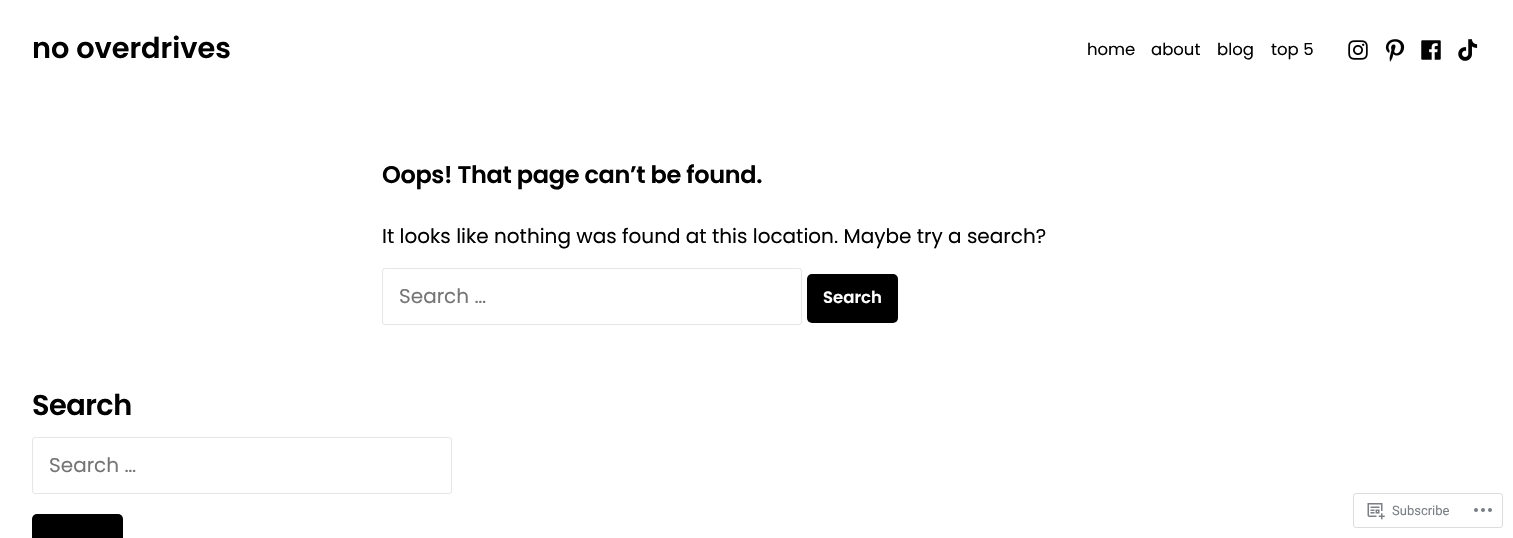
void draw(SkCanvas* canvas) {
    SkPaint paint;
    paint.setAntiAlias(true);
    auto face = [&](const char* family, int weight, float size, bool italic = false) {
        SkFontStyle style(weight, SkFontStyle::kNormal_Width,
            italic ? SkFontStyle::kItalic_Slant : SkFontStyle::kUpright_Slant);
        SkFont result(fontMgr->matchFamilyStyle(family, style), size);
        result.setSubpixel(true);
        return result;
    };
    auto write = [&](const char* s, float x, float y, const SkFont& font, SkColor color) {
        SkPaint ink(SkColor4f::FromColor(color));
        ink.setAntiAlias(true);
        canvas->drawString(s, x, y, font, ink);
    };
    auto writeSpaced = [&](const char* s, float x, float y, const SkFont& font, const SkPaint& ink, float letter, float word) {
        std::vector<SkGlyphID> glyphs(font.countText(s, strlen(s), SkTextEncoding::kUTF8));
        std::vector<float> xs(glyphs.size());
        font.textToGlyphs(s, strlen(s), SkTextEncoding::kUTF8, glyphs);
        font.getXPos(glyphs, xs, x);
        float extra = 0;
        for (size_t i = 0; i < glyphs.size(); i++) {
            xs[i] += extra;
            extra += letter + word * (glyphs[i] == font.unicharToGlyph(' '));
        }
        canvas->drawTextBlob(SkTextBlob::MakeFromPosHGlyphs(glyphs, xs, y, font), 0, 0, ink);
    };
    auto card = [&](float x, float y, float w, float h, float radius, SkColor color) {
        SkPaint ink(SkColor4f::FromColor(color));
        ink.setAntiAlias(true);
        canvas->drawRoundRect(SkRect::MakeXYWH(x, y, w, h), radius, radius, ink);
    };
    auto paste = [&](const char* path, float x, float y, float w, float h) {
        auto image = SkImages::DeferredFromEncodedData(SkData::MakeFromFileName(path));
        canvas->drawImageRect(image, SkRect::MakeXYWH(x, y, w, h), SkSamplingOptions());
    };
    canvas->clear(SK_ColorWHITE);
    auto kFont1 = face("Poppins", 600, 28.75f);
    write("no overdrives", 32, 58, kFont1, SkColorSetRGB(1, 1, 1));
    auto kFont2 = face("Poppins", 400, 16.5f);
    write("home", 1087, 55, kFont2, SkColorSetRGB(1, 1, 1));
    write("about", 1151, 55, kFont2, SkColorSetRGB(1, 1, 1));
    write("blog", 1217, 55, kFont2, SkColorSetRGB(1, 1, 1));
    write("top 5", 1271, 55, kFont2, SkColorSetRGB(1, 1, 1));
    paste("pic1.png", 1348, 40, 20, 20);
    paste("pic2.png", 1385, 39, 20, 23);
    paste("pic3.png", 1421, 40, 20, 20);
    paste("pic4.png", 1458, 39, 20, 22);
    auto kFont3 = face("Poppins", 600, 24);
    paint.setColor(SkColorSetRGB(1, 1, 1));
    writeSpaced("Oops! That page can’t be found.", 382, 183, kFont3, paint, -0.35f, 0);
    auto kFont4 = face("Poppins", 400, 20);
    write("It looks like nothing was found at this location. Maybe try a search?", 382, 243, kFont4, SkColorSetRGB(1, 1, 1));
    paint.setStyle(SkPaint::kStroke_Style);
    paint.setStrokeWidth(1);
    paint.setColor(SkColorSetRGB(230, 230, 230));
    canvas->drawRoundRect(SkRect::MakeXYWH(382.5f, 268.5f, 419, 56), 2.5f, 2.5f, paint);
    write("Search …", 399, 303, kFont4, SkColorSetRGB(117, 117, 117));
    card(807, 274, 91, 49, 5, SK_ColorBLACK);
    auto kFont5 = face("Poppins", 600, 16.5f);
    write("Search", 823, 303, kFont5, SK_ColorWHITE);
    paint.setStyle(SkPaint::kFill_Style);
    paint.setColor(SkColorSetRGB(1, 1, 1));
    writeSpaced("Search", 32, 415, kFont1, paint, -0.5f, 0);
    paint.setStyle(SkPaint::kStroke_Style);
    paint.setColor(SkColorSetRGB(230, 230, 230));
    canvas->drawRoundRect(SkRect::MakeXYWH(32.5f, 437.5f, 419, 56), 2.5f, 2.5f, paint);
    write("Search …", 49, 472, kFont4, SkColorSetRGB(117, 117, 117));
    card(32, 514, 91, 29, 5, SK_ColorBLACK);
    paint.setColor(SkColorSetRGB(221, 221, 223));
    canvas->drawRoundRect(SkRect::MakeXYWH(1353.5f, 493.5f, 149, 34), 2.5f, 2.5f, paint);
    paste("pic5.png", 1367, 503, 18, 17);
    auto kFont6 = face("Roboto", 400, 13);
    write("Subscribe", 1392, 515, kFont6, SkColorSetRGB(123, 127, 133));
    paste("pic6.png", 1474, 508, 18, 4);
}
